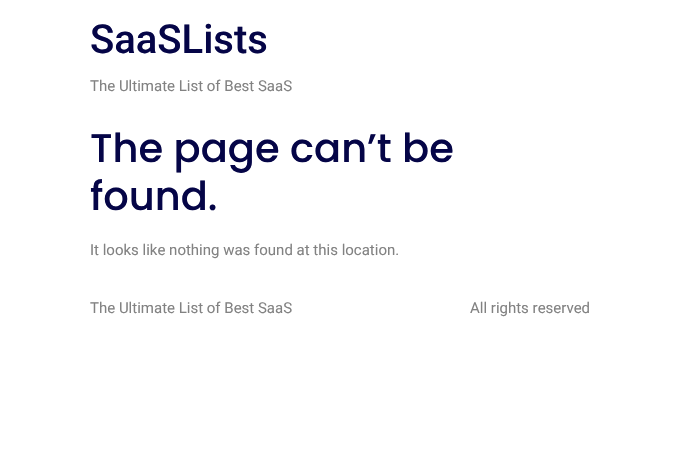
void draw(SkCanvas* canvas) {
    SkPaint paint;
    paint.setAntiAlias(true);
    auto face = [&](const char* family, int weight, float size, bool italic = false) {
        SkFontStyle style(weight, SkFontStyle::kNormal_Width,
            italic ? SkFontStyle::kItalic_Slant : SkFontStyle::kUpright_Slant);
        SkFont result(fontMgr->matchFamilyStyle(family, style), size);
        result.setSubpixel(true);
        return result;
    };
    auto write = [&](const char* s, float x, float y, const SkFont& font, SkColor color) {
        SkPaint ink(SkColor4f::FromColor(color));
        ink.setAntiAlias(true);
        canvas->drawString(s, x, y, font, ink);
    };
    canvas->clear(SK_ColorWHITE);
    auto kFont1 = face("Roboto", 500, 40);
    write("SaaSLists", 90, 53, kFont1, SkColorSetRGB(5, 5, 71));
    auto kFont2 = face("Roboto", 400, 15);
    write("The Ultimate List of Best SaaS", 90, 91, kFont2, SkColorSetRGB(130, 130, 130));
    auto kFont3 = face("Poppins", 500, 40);
    write("The page can’t be", 90, 162, kFont3, SkColorSetRGB(5, 5, 71));
    write("found.", 90, 210, kFont3, SkColorSetRGB(5, 5, 71));
    write("It looks like nothing was found at this location.", 90, 255, kFont2, SkColorSetRGB(130, 130, 130));
    write("The Ultimate List of Best SaaS", 90, 313, kFont2, SkColorSetRGB(130, 130, 130));
    write("All rights reserved", 470, 313, kFont2, SkColorSetRGB(130, 130, 130));
}
